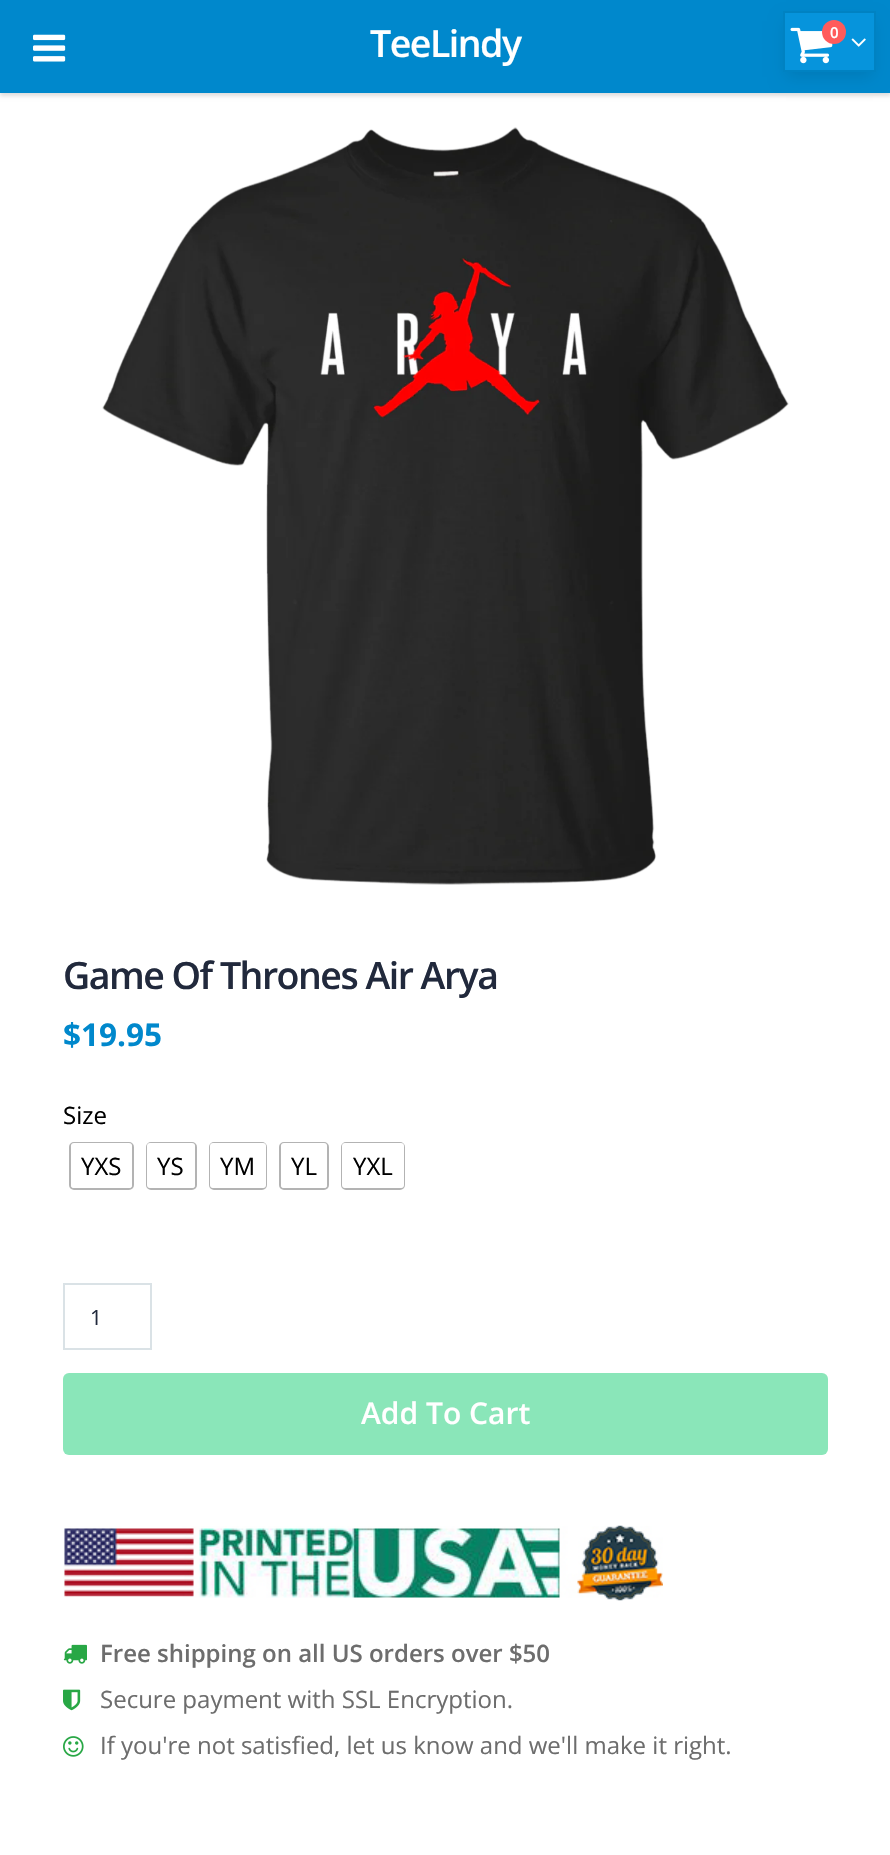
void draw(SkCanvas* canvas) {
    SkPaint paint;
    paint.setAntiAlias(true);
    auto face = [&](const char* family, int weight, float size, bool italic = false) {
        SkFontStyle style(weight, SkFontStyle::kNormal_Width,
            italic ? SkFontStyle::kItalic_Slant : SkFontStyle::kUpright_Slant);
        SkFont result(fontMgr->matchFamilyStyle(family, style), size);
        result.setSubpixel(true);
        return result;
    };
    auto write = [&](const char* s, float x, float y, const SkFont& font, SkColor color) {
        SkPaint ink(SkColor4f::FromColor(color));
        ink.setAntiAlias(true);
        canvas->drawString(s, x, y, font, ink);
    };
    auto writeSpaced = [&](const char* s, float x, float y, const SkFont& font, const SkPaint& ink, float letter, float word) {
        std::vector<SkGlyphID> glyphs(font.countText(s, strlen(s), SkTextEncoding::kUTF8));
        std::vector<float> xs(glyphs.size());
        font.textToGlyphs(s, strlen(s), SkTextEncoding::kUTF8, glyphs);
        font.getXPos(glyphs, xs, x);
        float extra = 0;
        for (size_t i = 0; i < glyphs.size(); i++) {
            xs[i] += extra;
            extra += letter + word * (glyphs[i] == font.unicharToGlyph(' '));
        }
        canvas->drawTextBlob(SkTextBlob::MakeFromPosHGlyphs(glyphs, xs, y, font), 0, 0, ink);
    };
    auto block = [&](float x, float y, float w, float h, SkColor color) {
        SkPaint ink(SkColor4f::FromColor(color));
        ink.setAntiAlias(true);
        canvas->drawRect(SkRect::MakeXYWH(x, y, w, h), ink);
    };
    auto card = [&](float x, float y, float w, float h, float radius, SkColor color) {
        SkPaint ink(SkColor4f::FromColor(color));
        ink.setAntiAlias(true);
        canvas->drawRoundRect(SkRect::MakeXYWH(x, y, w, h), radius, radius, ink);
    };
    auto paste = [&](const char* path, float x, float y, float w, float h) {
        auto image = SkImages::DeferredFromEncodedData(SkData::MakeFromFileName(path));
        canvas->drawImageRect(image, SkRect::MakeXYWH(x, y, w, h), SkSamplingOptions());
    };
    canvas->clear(SK_ColorWHITE);
    paint.setColor(SkColorSetRGB(221, 221, 221));
    paint.setMaskFilter(SkMaskFilter::MakeBlur(kNormal_SkBlurStyle, 2));
    canvas->drawRect(SkRect::MakeXYWH(0, 3, 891, 93), paint);
    paint.setMaskFilter(nullptr);
    block(0, 0, 890, 93, SkColorSetRGB(0, 136, 204));
    paste("pic1.png", 33, 34, 33, 28);
    auto kFont1 = face("Open Sans", 600, 37.5f);
    paint.setColor(SK_ColorWHITE);
    writeSpaced("TeeLindy", 370, 57, kFont1, paint, -1.5f, 0);
    paint.setColor(SkColorSetARGB(26, 0, 0, 0));
    paint.setMaskFilter(SkMaskFilter::MakeBlur(kNormal_SkBlurStyle, 8));
    canvas->drawRect(SkRect::MakeXYWH(786, 21, 87, 56), paint);
    paint.setMaskFilter(nullptr);
    paint.setColor(SkColorSetRGB(6, 148, 220));
    canvas->drawRect(SkRect::MakeXYWH(784, 12, 91, 59), paint);
    paint.setStyle(SkPaint::kStroke_Style);
    paint.setStrokeWidth(2);
    paint.setColor(SkColorSetRGB(0, 130, 194));
    canvas->drawRect(SkRect::MakeXYWH(784, 12, 91, 59), paint);
    paste("pic2.png", 790, 27, 43, 37);
    paint.setStyle(SkPaint::kFill_Style);
    paint.setColor(SkColorSetRGB(255, 91, 91));
    canvas->drawCircle(834, 32, 12, paint);
    auto kFont2 = face("Open Sans", 600, 15);
    write("0", 830, 38, kFont2, SK_ColorWHITE);
    paste("pic3.png", 851, 38, 15, 9);
    paste("pic4.png", 102, 127, 687, 758);
    paint.setColor(SkColorSetRGB(33, 41, 60));
    writeSpaced("Game Of Thrones Air Arya", 63, 989, kFont1, paint, -1.5f, 0);
    auto kFont3 = face("Open Sans", 700, 31.5f);
    write("$19.95", 63, 1046, kFont3, SkColorSetRGB(0, 136, 204));
    auto kFont4 = face("Open Sans", 400, 24);
    write("Size", 63, 1124, kFont4, SK_ColorBLACK);
    paint.setStyle(SkPaint::kStroke_Style);
    paint.setColor(SkColorSetRGB(179, 179, 179));
    canvas->drawRoundRect(SkRect::MakeXYWH(70, 1143, 63, 46), 4, 4, paint);
    card(71, 1143, 61, 45, 3, SK_ColorWHITE);
    write("YXS", 81, 1175, kFont4, SK_ColorBLACK);
    canvas->drawRoundRect(SkRect::MakeXYWH(147, 1143, 49, 46), 4, 4, paint);
    card(147, 1143, 48, 45, 3, SK_ColorWHITE);
    write("YS", 157, 1175, kFont4, SK_ColorBLACK);
    canvas->drawRoundRect(SkRect::MakeXYWH(210, 1143, 56, 46), 4, 4, paint);
    card(210, 1143, 56, 45, 3, SK_ColorWHITE);
    write("YM", 220, 1175, kFont4, SK_ColorBLACK);
    canvas->drawRoundRect(SkRect::MakeXYWH(280, 1143, 48, 46), 4, 4, paint);
    card(281, 1143, 46, 45, 3, SK_ColorWHITE);
    write("YL", 291, 1175, kFont4, SK_ColorBLACK);
    canvas->drawRoundRect(SkRect::MakeXYWH(342, 1143, 62, 46), 4, 4, paint);
    card(342, 1143, 62, 45, 3, SK_ColorWHITE);
    write("YXL", 353, 1175, kFont4, SK_ColorBLACK);
    paint.setColor(SkColorSetRGB(218, 226, 230));
    canvas->drawRect(SkRect::MakeXYWH(64, 1284, 87, 65), paint);
    auto kFont5 = face("Open Sans", 400, 21);
    write("1", 90, 1325, kFont5, SkColorSetRGB(33, 41, 60));
    card(63, 1373, 765, 82, 6, SkColorSetRGB(138, 230, 185));
    auto kFont6 = face("Open Sans", 600, 30);
    write("Add To Cart", 361, 1424, kFont6, SK_ColorWHITE);
    paste("pic5.png", 63, 1525, 600, 76);
    paste("pic6.png", 63, 1644, 24, 20);
    auto kFont7 = face("Open Sans", 600, 24);
    write("Free shipping on all US orders over $50", 100, 1662, kFont7, SkColorSetRGB(109, 109, 109));
    paste("pic7.png", 63, 1689, 18, 22);
    write("Secure payment with SSL Encryption.", 100, 1708, kFont4, SkColorSetRGB(109, 109, 109));
    paste("pic8.png", 63, 1736, 21, 21);
    write("If you're not satisfied, let us know and we'll make it right.", 100, 1754, kFont4, SkColorSetRGB(109, 109, 109));
}
